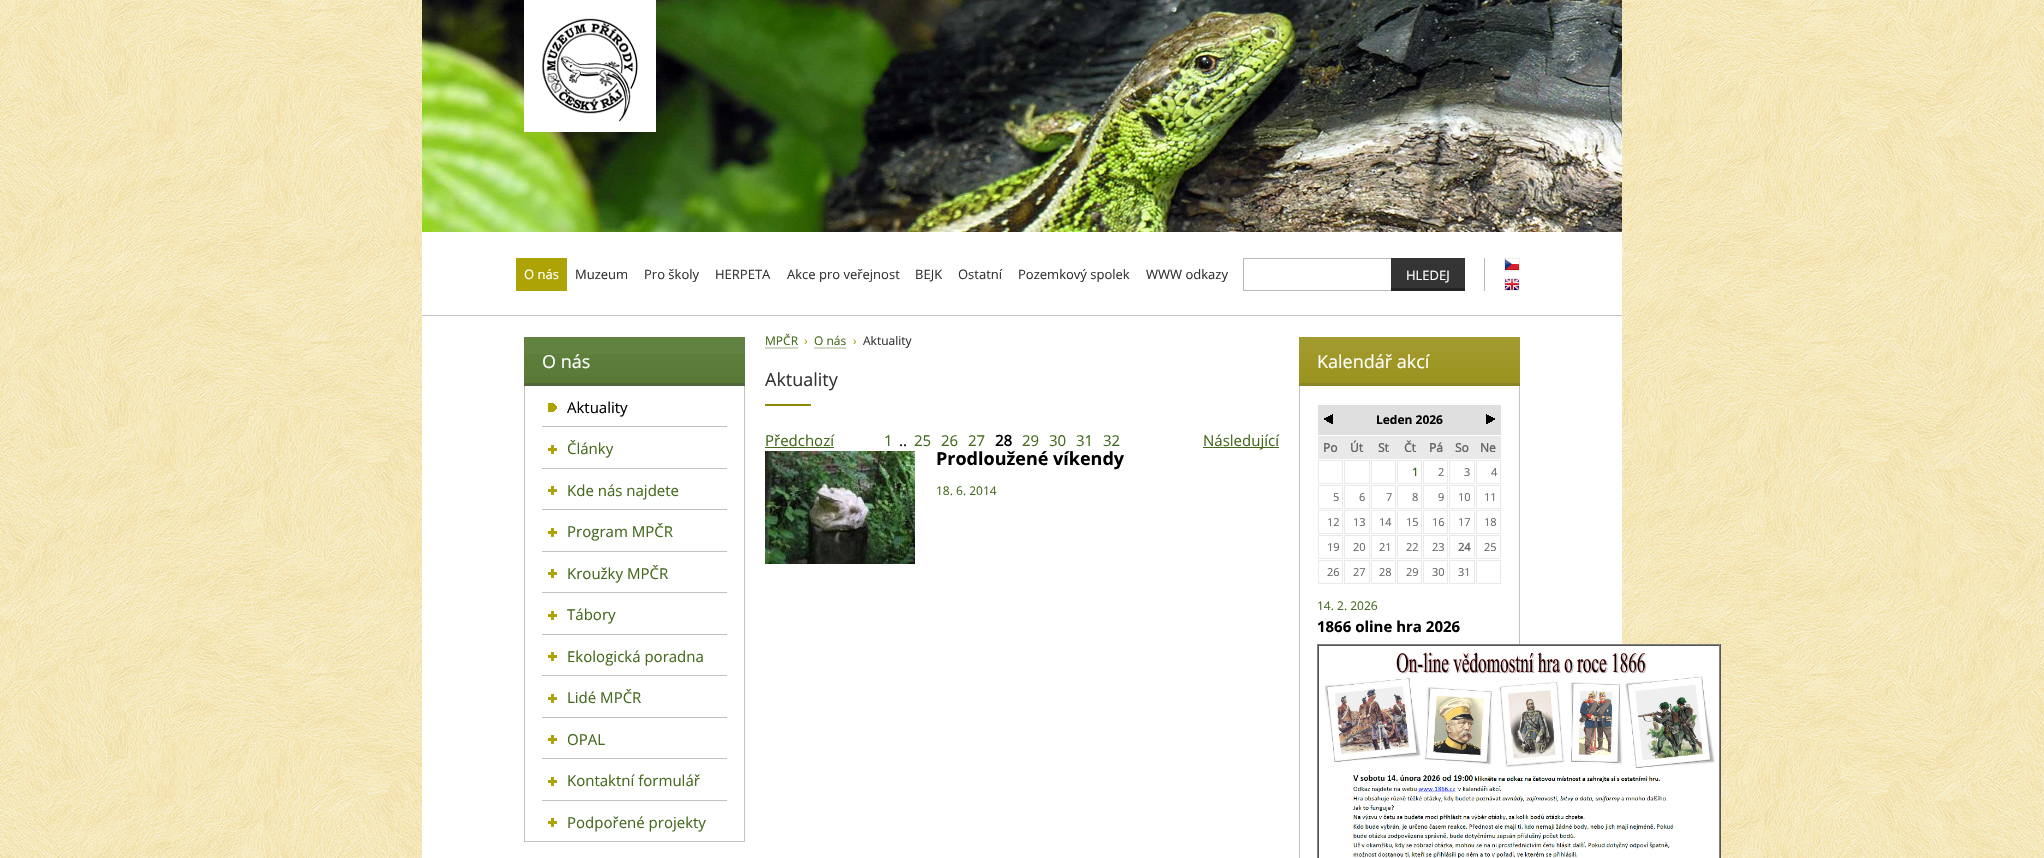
void draw(SkCanvas* canvas) {
    SkPaint paint;
    paint.setAntiAlias(true);
    auto face = [&](const char* family, int weight, float size, bool italic = false) {
        SkFontStyle style(weight, SkFontStyle::kNormal_Width,
            italic ? SkFontStyle::kItalic_Slant : SkFontStyle::kUpright_Slant);
        SkFont result(fontMgr->matchFamilyStyle(family, style), size);
        result.setSubpixel(true);
        return result;
    };
    auto write = [&](const char* s, float x, float y, const SkFont& font, SkColor color) {
        SkPaint ink(SkColor4f::FromColor(color));
        ink.setAntiAlias(true);
        canvas->drawString(s, x, y, font, ink);
    };
    auto block = [&](float x, float y, float w, float h, SkColor color) {
        SkPaint ink(SkColor4f::FromColor(color));
        ink.setAntiAlias(true);
        canvas->drawRect(SkRect::MakeXYWH(x, y, w, h), ink);
    };
    auto paste = [&](const char* path, float x, float y, float w, float h) {
        auto image = SkImages::DeferredFromEncodedData(SkData::MakeFromFileName(path));
        canvas->drawImageRect(image, SkRect::MakeXYWH(x, y, w, h), SkSamplingOptions());
    };
    canvas->clear(SK_ColorWHITE);
    paste("pic1.png", 0, 0, 2044, 858);
    block(422, 232, 1200, 626, SK_ColorWHITE);
    paste("pic2.png", 422, 0, 1200, 232);
    block(422, 315, 1200, 1, SkColorSetRGB(193, 193, 193));
    paste("pic3.png", 524, 0, 996, 232);
    block(524, 0, 132, 132, SK_ColorWHITE);
    paste("pic4.png", 532, 10, 116, 112);
    block(1484, 258, 1, 33, SkColorSetRGB(186, 186, 186));
    paste("pic5.png", 1504, 258, 16, 13);
    paste("pic6.png", 1504, 278, 16, 13);
    block(516, 258, 51, 33, SkColorSetRGB(173, 163, 7));
    auto kFont1 = face("Open Sans", 400, 13);
    write("O nás", 524, 279, kFont1, SK_ColorWHITE);
    write("Muzeum", 575, 279, kFont1, SkColorSetRGB(52, 52, 52));
    write("Pro školy", 644, 279, kFont1, SkColorSetRGB(52, 52, 52));
    write("HERPETA", 715, 279, kFont1, SkColorSetRGB(52, 52, 52));
    write("Akce pro veřejnost", 787, 279, kFont1, SkColorSetRGB(52, 52, 52));
    write("BEJK", 915, 279, kFont1, SkColorSetRGB(52, 52, 52));
    write("Ostatní", 958, 279, kFont1, SkColorSetRGB(52, 52, 52));
    write("Pozemkový spolek", 1018, 279, kFont1, SkColorSetRGB(52, 52, 52));
    write("WWW odkazy", 1146, 279, kFont1, SkColorSetRGB(52, 52, 52));
    auto kFont2 = face("Open Sans", 400, 12);
    write("MPČR", 765, 345, kFont2, SkColorSetRGB(68, 106, 29));
    block(765, 347, 33, 2, SkColorSetRGB(208, 218, 198));
    write("›", 804, 345, kFont2, SkColorSetRGB(173, 163, 7));
    write("O nás", 814, 345, kFont2, SkColorSetRGB(68, 106, 29));
    block(814, 347, 32, 2, SkColorSetRGB(208, 218, 198));
    write("›", 853, 345, kFont2, SkColorSetRGB(173, 163, 7));
    write("Aktuality", 863, 345, kFont2, SkColorSetRGB(52, 52, 52));
    block(1243, 258, 148, 1, SkColorSetRGB(186, 186, 186));
    block(1243, 290, 148, 1, SkColorSetRGB(186, 186, 186));
    block(1243, 258, 1, 33, SkColorSetRGB(186, 186, 186));
    block(1391, 258, 74, 30, SkColorSetRGB(52, 52, 52));
    block(1391, 288, 74, 3, SkColorSetRGB(36, 36, 36));
    write("HLEDEJ", 1406, 280, kFont1, SK_ColorWHITE);
    paint.setStyle(SkPaint::kStroke_Style);
    paint.setStrokeWidth(1);
    paint.setColor(SkColorSetRGB(193, 193, 193));
    canvas->drawRect(SkRect::MakeXYWH(524.5f, 337.5f, 220, 504), paint);
    block(524, 337, 221, 17, SkColorSetRGB(98, 130, 65));
    paste("pic7.png", 524, 354, 221, 32);
    auto kFont3 = face("Open Sans", 400, 18);
    write("O nás", 542, 368, kFont3, SK_ColorWHITE);
    paste("pic8.png", 548, 403, 9, 9);
    block(542, 426, 185, 1, SkColorSetRGB(193, 193, 193));
    auto kFont4 = face("Open Sans", 400, 15);
    write("Aktuality", 567, 413, kFont4, SK_ColorBLACK);
    paste("pic9.png", 548, 445, 9, 9);
    block(542, 468, 185, 1, SkColorSetRGB(193, 193, 193));
    write("Články", 567, 454, kFont4, SkColorSetRGB(68, 106, 29));
    paste("pic9.png", 548, 486, 9, 9);
    block(542, 509, 185, 1, SkColorSetRGB(193, 193, 193));
    write("Kde nás najdete", 567, 496, kFont4, SkColorSetRGB(68, 106, 29));
    paste("pic9.png", 548, 528, 9, 9);
    block(542, 551, 185, 1, SkColorSetRGB(193, 193, 193));
    write("Program MPČR", 567, 537, kFont4, SkColorSetRGB(68, 106, 29));
    paste("pic9.png", 548, 569, 9, 9);
    block(542, 592, 185, 1, SkColorSetRGB(193, 193, 193));
    write("Kroužky MPČR", 567, 579, kFont4, SkColorSetRGB(68, 106, 29));
    paste("pic9.png", 548, 611, 9, 9);
    block(542, 634, 185, 1, SkColorSetRGB(193, 193, 193));
    write("Tábory", 567, 620, kFont4, SkColorSetRGB(68, 106, 29));
    paste("pic9.png", 548, 652, 9, 9);
    block(542, 675, 185, 1, SkColorSetRGB(193, 193, 193));
    write("Ekologická poradna", 567, 662, kFont4, SkColorSetRGB(68, 106, 29));
    paste("pic9.png", 548, 694, 9, 9);
    block(542, 717, 185, 1, SkColorSetRGB(193, 193, 193));
    write("Lidé MPČR", 567, 703, kFont4, SkColorSetRGB(68, 106, 29));
    paste("pic9.png", 548, 735, 9, 9);
    block(542, 758, 185, 1, SkColorSetRGB(193, 193, 193));
    write("OPAL", 567, 745, kFont4, SkColorSetRGB(68, 106, 29));
    paste("pic9.png", 548, 777, 9, 9);
    block(542, 800, 185, 1, SkColorSetRGB(193, 193, 193));
    write("Kontaktní formulář", 567, 786, kFont4, SkColorSetRGB(68, 106, 29));
    paste("pic9.png", 548, 818, 9, 9);
    write("Podpořené projekty", 567, 828, kFont4, SkColorSetRGB(68, 106, 29));
    block(765, 404, 46, 2, SkColorSetRGB(144, 135, 6));
    write("Aktuality", 765, 386, kFont3, SkColorSetRGB(52, 52, 52));
    write("Předchozí", 765, 446, kFont4, SkColorSetRGB(68, 106, 29));
    block(765, 447, 69, 1, SkColorSetRGB(68, 106, 29));
    write("1", 884, 446, kFont4, SkColorSetRGB(68, 106, 29));
    write("..", 899, 446, kFont4, SK_ColorBLACK);
    write("25", 914, 446, kFont4, SkColorSetRGB(68, 106, 29));
    write("26", 941, 446, kFont4, SkColorSetRGB(68, 106, 29));
    write("27", 968, 446, kFont4, SkColorSetRGB(68, 106, 29));
    auto kFont5 = face("Open Sans", 700, 15);
    write("28", 995, 446, kFont5, SK_ColorBLACK);
    write("29", 1022, 446, kFont4, SkColorSetRGB(68, 106, 29));
    write("30", 1049, 446, kFont4, SkColorSetRGB(68, 106, 29));
    write("31", 1076, 446, kFont4, SkColorSetRGB(68, 106, 29));
    write("32", 1103, 446, kFont4, SkColorSetRGB(68, 106, 29));
    block(1203, 447, 76, 1, SkColorSetRGB(68, 106, 29));
    write("Následující", 1203, 446, kFont4, SkColorSetRGB(68, 106, 29));
    paste("pic10.png", 765, 451, 150, 113);
    auto kFont6 = face("Open Sans", 700, 18, true);
    write("Prodloužené víkendy", 936, 465, kFont6, SK_ColorBLACK);
    write("18. 6. 2014", 936, 495, kFont2, SkColorSetRGB(68, 106, 29));
    canvas->drawRect(SkRect::MakeXYWH(1299.5f, 337.5f, 220, 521), paint);
    block(1299, 337, 221, 14, SkColorSetRGB(162, 154, 46));
    paste("pic11.png", 1299, 351, 221, 35);
    write("Kalendář akcí", 1317, 368, kFont3, SK_ColorWHITE);
    block(1318, 405, 183, 30, SkColorSetRGB(223, 223, 223));
    paste("pic12.png", 1324, 414, 9, 10);
    auto kFont7 = face("Open Sans", 700, 12, true);
    write("Leden 2026", 1376, 424, kFont7, SK_ColorBLACK);
    paste("pic13.png", 1486, 414, 9, 10);
    block(1318, 436, 183, 23, SkColorSetRGB(233, 233, 233));
    auto kFont8 = face("Open Sans", 700, 12);
    write("Po", 1323, 452, kFont8, SkColorSetRGB(102, 102, 102));
    write("Út", 1350, 452, kFont8, SkColorSetRGB(102, 102, 102));
    write("St", 1378, 452, kFont8, SkColorSetRGB(102, 102, 102));
    write("Čt", 1404, 452, kFont8, SkColorSetRGB(102, 102, 102));
    write("Pá", 1429, 452, kFont8, SkColorSetRGB(102, 102, 102));
    write("So", 1455, 452, kFont8, SkColorSetRGB(102, 102, 102));
    write("Ne", 1480, 452, kFont8, SkColorSetRGB(102, 102, 102));
    paint.setColor(SkColorSetRGB(233, 233, 233));
    canvas->drawRect(SkRect::MakeXYWH(1318.5f, 460.5f, 24, 23), paint);
    canvas->drawRect(SkRect::MakeXYWH(1344.5f, 460.5f, 25, 23), paint);
    canvas->drawRect(SkRect::MakeXYWH(1371.5f, 460.5f, 24, 23), paint);
    canvas->drawRect(SkRect::MakeXYWH(1397.5f, 460.5f, 24, 23), paint);
    auto kFont9 = face("Open Sans", 700, 11);
    write("1", 1412, 476, kFont9, SkColorSetRGB(68, 106, 29));
    canvas->drawRect(SkRect::MakeXYWH(1423.5f, 460.5f, 24, 23), paint);
    auto kFont10 = face("Open Sans", 400, 11);
    write("2", 1438, 476, kFont10, SkColorSetRGB(102, 102, 102));
    canvas->drawRect(SkRect::MakeXYWH(1449.5f, 460.5f, 25, 23), paint);
    write("3", 1464, 476, kFont10, SkColorSetRGB(102, 102, 102));
    canvas->drawRect(SkRect::MakeXYWH(1476.5f, 460.5f, 24, 23), paint);
    write("4", 1491, 476, kFont10, SkColorSetRGB(102, 102, 102));
    canvas->drawRect(SkRect::MakeXYWH(1318.5f, 485.5f, 24, 23), paint);
    write("5", 1333, 501, kFont10, SkColorSetRGB(102, 102, 102));
    canvas->drawRect(SkRect::MakeXYWH(1344.5f, 485.5f, 25, 23), paint);
    write("6", 1359, 501, kFont10, SkColorSetRGB(102, 102, 102));
    canvas->drawRect(SkRect::MakeXYWH(1371.5f, 485.5f, 24, 23), paint);
    write("7", 1386, 501, kFont10, SkColorSetRGB(102, 102, 102));
    canvas->drawRect(SkRect::MakeXYWH(1397.5f, 485.5f, 24, 23), paint);
    write("8", 1412, 501, kFont10, SkColorSetRGB(102, 102, 102));
    canvas->drawRect(SkRect::MakeXYWH(1423.5f, 485.5f, 24, 23), paint);
    write("9", 1438, 501, kFont10, SkColorSetRGB(102, 102, 102));
    canvas->drawRect(SkRect::MakeXYWH(1449.5f, 485.5f, 25, 23), paint);
    write("10", 1458, 501, kFont10, SkColorSetRGB(102, 102, 102));
    canvas->drawRect(SkRect::MakeXYWH(1476.5f, 485.5f, 24, 23), paint);
    write("11", 1484, 501, kFont10, SkColorSetRGB(102, 102, 102));
    canvas->drawRect(SkRect::MakeXYWH(1318.5f, 510.5f, 24, 23), paint);
    write("12", 1327, 526, kFont10, SkColorSetRGB(102, 102, 102));
    canvas->drawRect(SkRect::MakeXYWH(1344.5f, 510.5f, 25, 23), paint);
    write("13", 1353, 526, kFont10, SkColorSetRGB(102, 102, 102));
    canvas->drawRect(SkRect::MakeXYWH(1371.5f, 510.5f, 24, 23), paint);
    write("14", 1379, 526, kFont10, SkColorSetRGB(102, 102, 102));
    canvas->drawRect(SkRect::MakeXYWH(1397.5f, 510.5f, 24, 23), paint);
    write("15", 1406, 526, kFont10, SkColorSetRGB(102, 102, 102));
    canvas->drawRect(SkRect::MakeXYWH(1423.5f, 510.5f, 24, 23), paint);
    write("16", 1432, 526, kFont10, SkColorSetRGB(102, 102, 102));
    canvas->drawRect(SkRect::MakeXYWH(1449.5f, 510.5f, 25, 23), paint);
    write("17", 1458, 526, kFont10, SkColorSetRGB(102, 102, 102));
    canvas->drawRect(SkRect::MakeXYWH(1476.5f, 510.5f, 24, 23), paint);
    write("18", 1484, 526, kFont10, SkColorSetRGB(102, 102, 102));
    canvas->drawRect(SkRect::MakeXYWH(1318.5f, 535.5f, 24, 23), paint);
    write("19", 1327, 551, kFont10, SkColorSetRGB(102, 102, 102));
    canvas->drawRect(SkRect::MakeXYWH(1344.5f, 535.5f, 25, 23), paint);
    write("20", 1353, 551, kFont10, SkColorSetRGB(102, 102, 102));
    canvas->drawRect(SkRect::MakeXYWH(1371.5f, 535.5f, 24, 23), paint);
    write("21", 1379, 551, kFont10, SkColorSetRGB(102, 102, 102));
    canvas->drawRect(SkRect::MakeXYWH(1397.5f, 535.5f, 24, 23), paint);
    write("22", 1406, 551, kFont10, SkColorSetRGB(102, 102, 102));
    canvas->drawRect(SkRect::MakeXYWH(1423.5f, 535.5f, 24, 23), paint);
    write("23", 1432, 551, kFont10, SkColorSetRGB(102, 102, 102));
    canvas->drawRect(SkRect::MakeXYWH(1449.5f, 535.5f, 25, 23), paint);
    write("24", 1458, 551, kFont9, SkColorSetRGB(102, 102, 102));
    canvas->drawRect(SkRect::MakeXYWH(1476.5f, 535.5f, 24, 23), paint);
    write("25", 1484, 551, kFont10, SkColorSetRGB(102, 102, 102));
    canvas->drawRect(SkRect::MakeXYWH(1318.5f, 560.5f, 24, 23), paint);
    write("26", 1327, 576, kFont10, SkColorSetRGB(102, 102, 102));
    canvas->drawRect(SkRect::MakeXYWH(1344.5f, 560.5f, 25, 23), paint);
    write("27", 1353, 576, kFont10, SkColorSetRGB(102, 102, 102));
    canvas->drawRect(SkRect::MakeXYWH(1371.5f, 560.5f, 24, 23), paint);
    write("28", 1379, 576, kFont10, SkColorSetRGB(102, 102, 102));
    canvas->drawRect(SkRect::MakeXYWH(1397.5f, 560.5f, 24, 23), paint);
    write("29", 1406, 576, kFont10, SkColorSetRGB(102, 102, 102));
    canvas->drawRect(SkRect::MakeXYWH(1423.5f, 560.5f, 24, 23), paint);
    write("30", 1432, 576, kFont10, SkColorSetRGB(102, 102, 102));
    canvas->drawRect(SkRect::MakeXYWH(1449.5f, 560.5f, 25, 23), paint);
    write("31", 1458, 576, kFont10, SkColorSetRGB(102, 102, 102));
    canvas->drawRect(SkRect::MakeXYWH(1476.5f, 560.5f, 24, 23), paint);
    write("14. 2. 2026", 1317, 610, kFont2, SkColorSetRGB(68, 106, 29));
    auto kFont11 = face("Open Sans", 700, 15, true);
    write("1866 oline hra 2026", 1317, 632, kFont11, SK_ColorBLACK);
    block(1317, 644, 404, 1, SkColorSetRGB(128, 128, 128));
    block(1720, 644, 1, 214, SkColorSetRGB(85, 85, 85));
    block(1317, 644, 1, 214, SkColorSetRGB(128, 128, 128));
    block(1318, 645, 402, 1, SkColorSetRGB(85, 85, 85));
    block(1719, 645, 1, 213, SkColorSetRGB(128, 128, 128));
    block(1318, 645, 1, 213, SkColorSetRGB(85, 85, 85));
    paste("pic14.png", 1324, 646, 395, 212);
}
